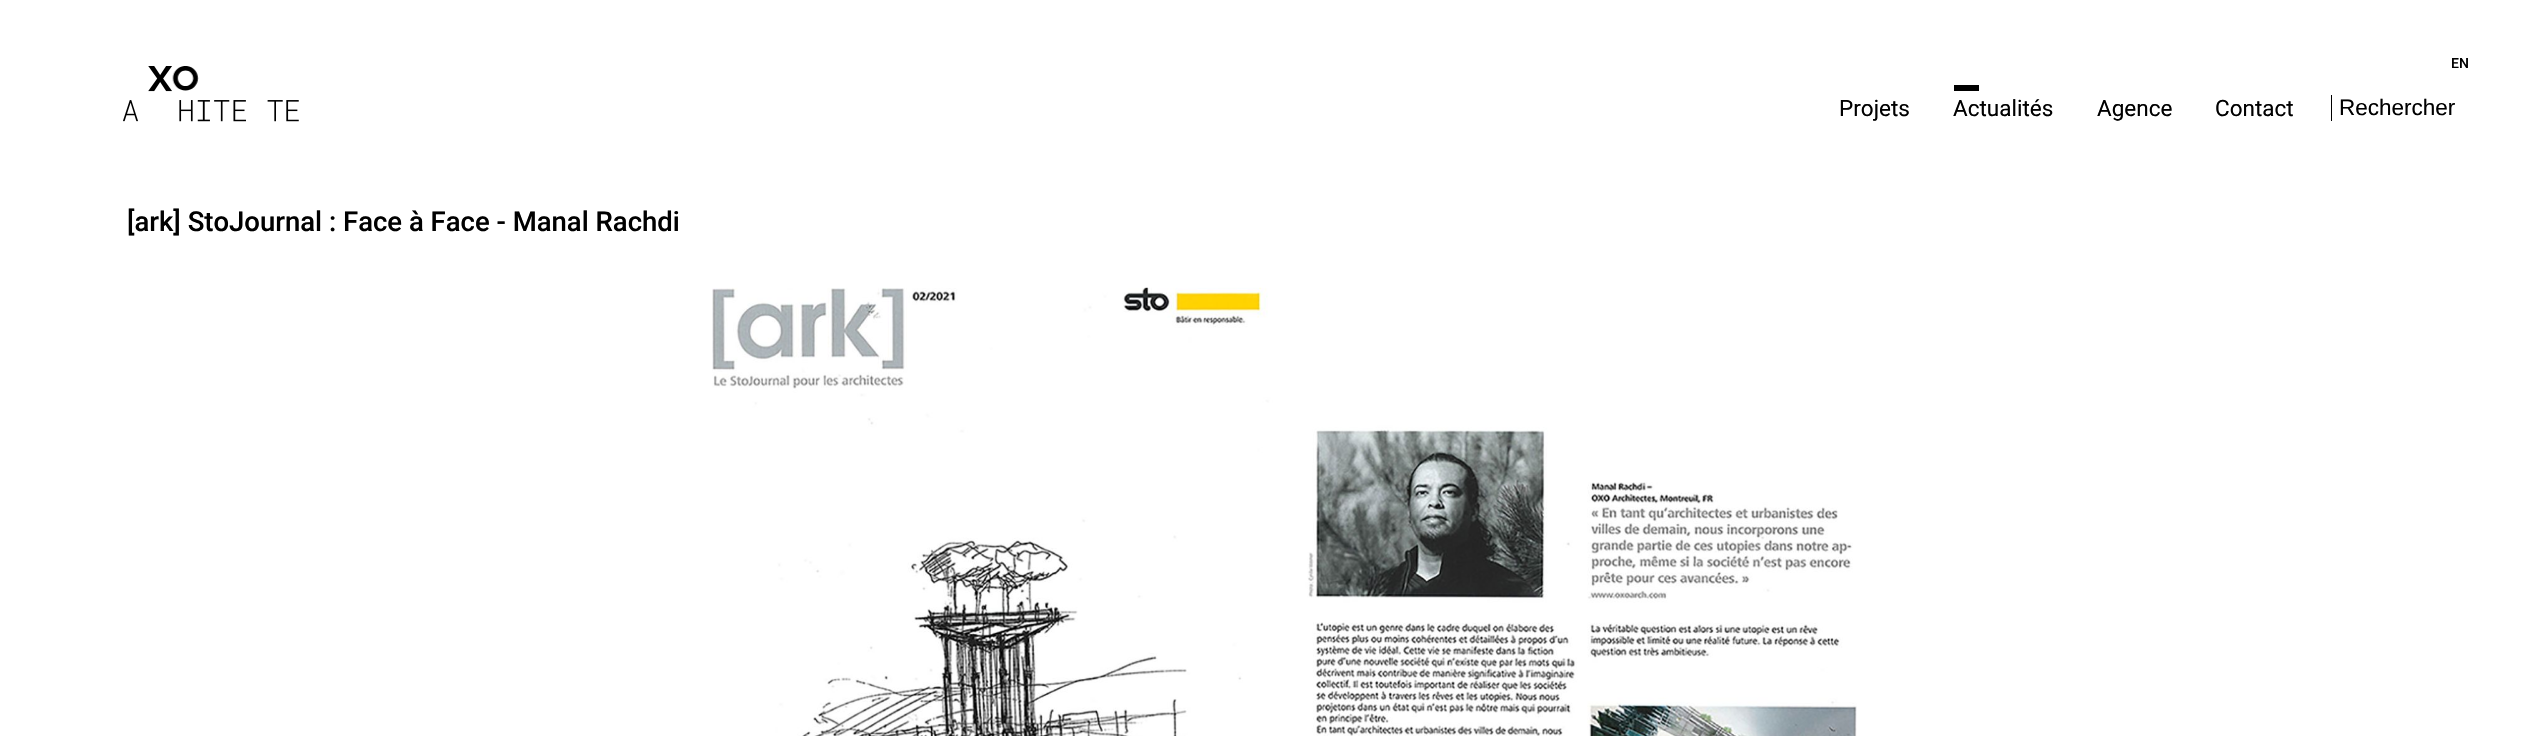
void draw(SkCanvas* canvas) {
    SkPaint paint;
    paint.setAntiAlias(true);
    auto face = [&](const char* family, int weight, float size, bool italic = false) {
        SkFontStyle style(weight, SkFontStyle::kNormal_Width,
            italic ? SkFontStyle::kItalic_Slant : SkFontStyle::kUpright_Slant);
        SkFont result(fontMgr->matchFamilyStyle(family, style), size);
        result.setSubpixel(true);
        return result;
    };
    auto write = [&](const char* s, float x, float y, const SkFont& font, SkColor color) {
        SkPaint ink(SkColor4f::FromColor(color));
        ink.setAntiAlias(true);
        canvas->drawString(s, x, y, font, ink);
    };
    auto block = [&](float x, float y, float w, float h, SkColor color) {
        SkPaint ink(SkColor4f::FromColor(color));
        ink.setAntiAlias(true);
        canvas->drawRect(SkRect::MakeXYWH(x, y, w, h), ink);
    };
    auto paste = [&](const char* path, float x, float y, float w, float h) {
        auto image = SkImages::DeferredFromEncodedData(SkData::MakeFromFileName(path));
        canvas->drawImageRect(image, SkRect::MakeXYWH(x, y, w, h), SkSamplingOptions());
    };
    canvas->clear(SK_ColorWHITE);
    paste("pic4.png", 712, 287, 1145, 449);
    paste("pic1.png", 914, 288, 234, 6);
    paste("pic2.png", 123, 66, 176, 56);
    paste("pic3.png", 172, 66, 27, 25);
    auto kFont1 = face("Roboto", 500, 14);
    write("EN", 2451, 68, kFont1, SK_ColorBLACK);
    auto kFont2 = face("Roboto", 400, 22.5f);
    write("Projets", 1839, 116, kFont2, SK_ColorBLACK);
    block(1954, 85, 25, 6, SK_ColorBLACK);
    write("Actualités", 1953, 116, kFont2, SK_ColorBLACK);
    write("Agence", 2097, 116, kFont2, SK_ColorBLACK);
    write("Contact", 2215, 116, kFont2, SK_ColorBLACK);
    block(2331, 95, 1, 26, SK_ColorBLACK);
    auto kFont3 = face("Liberation Sans", 400, 22.5f);
    write("Rechercher", 2339, 115, kFont3, SK_ColorBLACK);
    auto kFont4 = face("Roboto", 500, 27.5f);
    write("[ark] StoJournal : Face à Face - Manal Rachdi", 127, 231, kFont4, SK_ColorBLACK);
}
